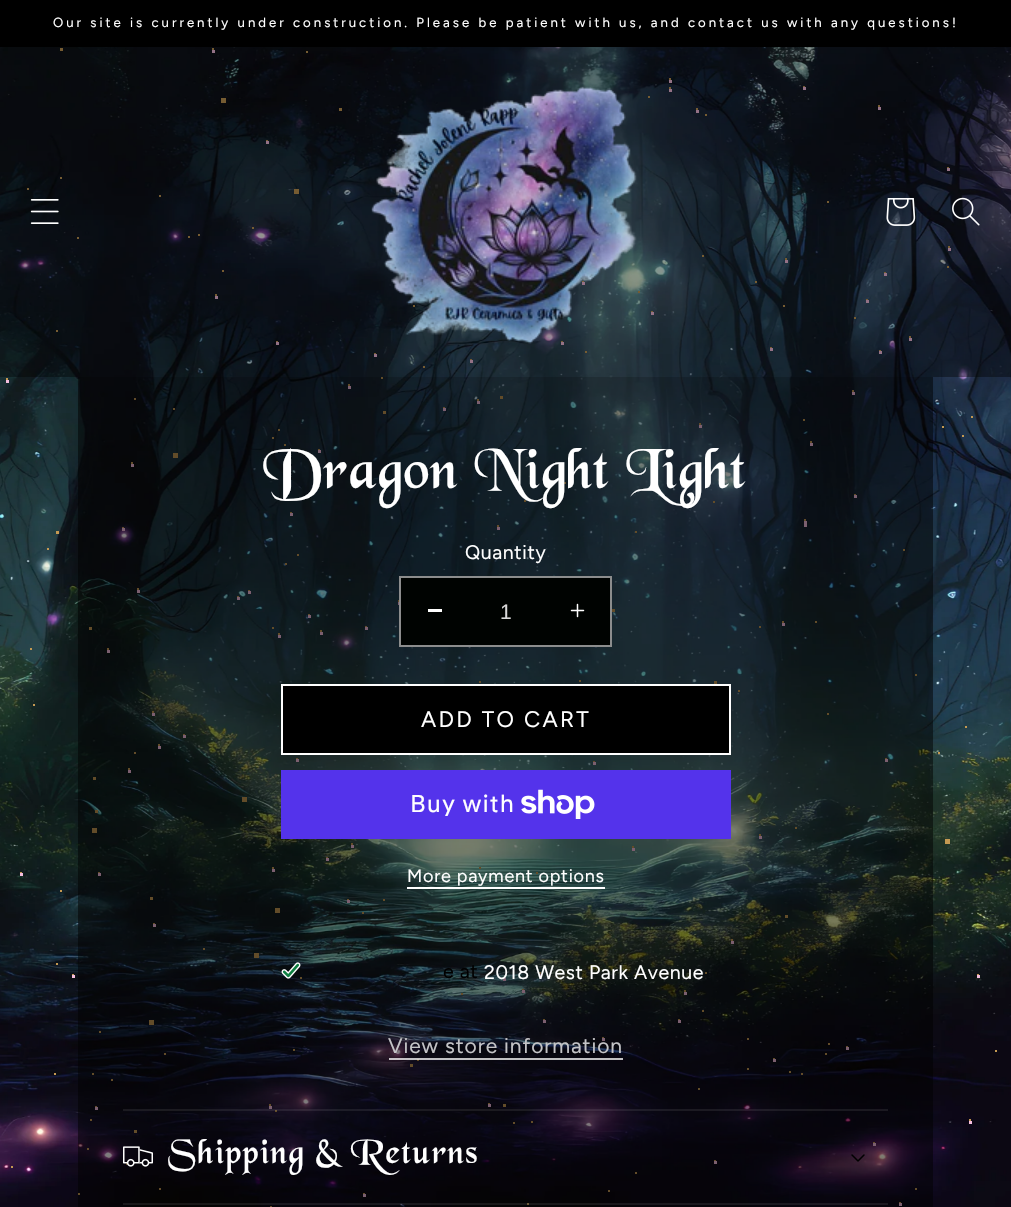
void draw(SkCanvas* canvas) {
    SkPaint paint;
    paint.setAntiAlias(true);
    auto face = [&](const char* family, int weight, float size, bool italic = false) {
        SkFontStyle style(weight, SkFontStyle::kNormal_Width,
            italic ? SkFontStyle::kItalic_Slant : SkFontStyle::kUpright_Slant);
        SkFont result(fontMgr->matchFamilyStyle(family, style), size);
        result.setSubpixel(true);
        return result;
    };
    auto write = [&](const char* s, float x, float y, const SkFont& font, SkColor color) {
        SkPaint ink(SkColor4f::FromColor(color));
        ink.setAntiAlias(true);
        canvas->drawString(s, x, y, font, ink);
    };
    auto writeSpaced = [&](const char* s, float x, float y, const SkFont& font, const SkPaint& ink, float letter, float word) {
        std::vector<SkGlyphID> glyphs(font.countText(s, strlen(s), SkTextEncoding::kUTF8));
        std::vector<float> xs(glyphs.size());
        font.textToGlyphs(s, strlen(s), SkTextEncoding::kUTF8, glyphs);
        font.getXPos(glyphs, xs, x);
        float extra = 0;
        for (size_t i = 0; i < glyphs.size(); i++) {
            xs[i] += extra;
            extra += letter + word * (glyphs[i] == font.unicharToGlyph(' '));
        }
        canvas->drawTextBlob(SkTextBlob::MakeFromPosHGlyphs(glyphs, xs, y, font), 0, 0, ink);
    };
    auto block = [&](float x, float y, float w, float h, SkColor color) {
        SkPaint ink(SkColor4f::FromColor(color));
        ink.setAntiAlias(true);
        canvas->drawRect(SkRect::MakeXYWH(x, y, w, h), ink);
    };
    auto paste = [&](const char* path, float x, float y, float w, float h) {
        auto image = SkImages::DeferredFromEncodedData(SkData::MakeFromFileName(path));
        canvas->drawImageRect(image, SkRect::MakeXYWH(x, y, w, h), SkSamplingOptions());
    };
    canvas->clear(SK_ColorWHITE);
    paste("pic1.png", 0, 47, 1011, 1160);
    block(0, 0, 1011, 47, SK_ColorBLACK);
    auto kFont1 = face("Figtree", 400, 13.2f);
    paint.setColor(SK_ColorWHITE);
    writeSpaced("Our site is currently under construction. Please be patient with us, and contact us with any questions!", 53, 27, kFont1, paint, 3, 0);
    block(948, 246, 2, 2, SkColorSetRGB(196, 153, 82));
    block(878, 105, 2, 2, SkColorSetRGB(196, 153, 82));
    block(266, 140, 2, 1, SkColorSetRGB(196, 153, 82));
    block(909, 336, 2, 2, SkColorSetRGB(196, 153, 82));
    block(803, 86, 2, 1, SkColorSetRGB(196, 153, 82));
    block(947, 167, 2, 1, SkColorSetRGB(196, 153, 82));
    block(866, 299, 2, 1, SkColorSetRGB(196, 153, 82));
    block(669, 78, 2, 2, SkColorSetRGB(196, 153, 82));
    block(669, 87, 2, 2, SkColorSetRGB(196, 153, 82));
    block(879, 350, 2, 1, SkColorSetRGB(196, 153, 82));
    block(785, 258, 2, 2, SkColorSetRGB(196, 153, 82));
    block(884, 272, 2, 1, SkColorSetRGB(196, 153, 82));
    block(770, 347, 2, 1, SkColorSetRGB(196, 153, 82));
    block(215, 294, 2, 2, SkColorSetRGB(196, 153, 82));
    block(374, 353, 2, 1, SkColorSetRGB(196, 153, 82));
    block(651, 311, 2, 1, SkColorSetRGB(196, 153, 82));
    block(470, 359, 2, 1, SkColorSetRGB(196, 153, 82));
    block(561, 341, 2, 1, SkColorSetRGB(196, 153, 82));
    block(582, 281, 2, 1, SkColorSetRGB(196, 153, 82));
    block(276, 341, 2, 1, SkColorSetRGB(196, 153, 82));
    block(212, 48, 2, 2, SkColorSetRGB(196, 153, 82));
    block(696, 108, 2, 2, SkColorSetRGB(196, 153, 82));
    block(60, 48, 3, 3, SkColorSetRGB(196, 153, 82));
    block(339, 108, 3, 3, SkColorSetRGB(196, 153, 82));
    block(948, 248, 3, 3, SkColorSetRGB(246, 190, 223));
    block(878, 107, 3, 3, SkColorSetRGB(246, 190, 223));
    block(266, 141, 3, 3, SkColorSetRGB(246, 190, 223));
    block(909, 338, 3, 3, SkColorSetRGB(246, 190, 223));
    block(803, 87, 3, 3, SkColorSetRGB(246, 190, 223));
    block(947, 168, 3, 3, SkColorSetRGB(246, 190, 223));
    block(866, 300, 3, 3, SkColorSetRGB(246, 190, 223));
    block(669, 80, 3, 3, SkColorSetRGB(246, 190, 223));
    block(669, 89, 3, 3, SkColorSetRGB(246, 190, 223));
    block(879, 351, 3, 3, SkColorSetRGB(246, 190, 223));
    block(785, 260, 3, 3, SkColorSetRGB(246, 190, 223));
    block(884, 273, 3, 3, SkColorSetRGB(246, 190, 223));
    block(770, 348, 3, 3, SkColorSetRGB(246, 190, 223));
    block(215, 296, 3, 3, SkColorSetRGB(246, 190, 223));
    block(374, 354, 3, 3, SkColorSetRGB(246, 190, 223));
    block(651, 312, 3, 3, SkColorSetRGB(246, 190, 223));
    block(470, 360, 3, 3, SkColorSetRGB(246, 190, 223));
    block(561, 342, 3, 3, SkColorSetRGB(246, 190, 223));
    block(582, 282, 3, 3, SkColorSetRGB(246, 190, 223));
    block(276, 342, 3, 3, SkColorSetRGB(246, 190, 223));
    block(212, 50, 3, 3, SkColorSetRGB(246, 190, 223));
    block(696, 110, 3, 3, SkColorSetRGB(246, 190, 223));
    block(702, 255, 2, 2, SkColorSetRGB(196, 153, 82));
    block(60, 177, 2, 2, SkColorSetRGB(196, 153, 82));
    block(27, 188, 2, 2, SkColorSetRGB(196, 153, 82));
    block(705, 114, 2, 2, SkColorSetRGB(196, 153, 82));
    block(585, 351, 2, 2, SkColorSetRGB(196, 153, 82));
    block(413, 305, 2, 2, SkColorSetRGB(196, 153, 82));
    block(947, 266, 2, 2, SkColorSetRGB(196, 153, 82));
    block(77, 237, 2, 2, SkColorSetRGB(196, 153, 82));
    block(755, 281, 2, 2, SkColorSetRGB(196, 153, 82));
    block(827, 201, 2, 2, SkColorSetRGB(196, 153, 82));
    block(783, 305, 2, 2, SkColorSetRGB(196, 153, 82));
    block(854, 317, 2, 2, SkColorSetRGB(196, 153, 82));
    block(423, 366, 2, 2, SkColorSetRGB(196, 153, 82));
    block(188, 236, 2, 2, SkColorSetRGB(196, 153, 82));
    block(222, 270, 2, 2, SkColorSetRGB(196, 153, 82));
    block(638, 291, 2, 2, SkColorSetRGB(196, 153, 82));
    block(198, 234, 2, 2, SkColorSetRGB(196, 153, 82));
    block(252, 227, 2, 2, SkColorSetRGB(196, 153, 82));
    block(159, 195, 2, 2, SkColorSetRGB(196, 153, 82));
    block(306, 51, 2, 2, SkColorSetRGB(196, 153, 82));
    block(56, 330, 2, 2, SkColorSetRGB(196, 153, 82));
    block(648, 96, 2, 2, SkColorSetRGB(196, 153, 82));
    block(221, 98, 5, 5, SkColorSetRGB(196, 153, 82));
    block(294, 189, 5, 5, SkColorSetRGB(196, 153, 82));
    block(0, 47, 1011, 330, SkColorSetARGB(102, 0, 0, 0));
    paste("pic2.png", 30, 199, 29, 25);
    paste("pic3.png", 371, 86, 266, 258);
    paste("pic4.png", 886, 198, 30, 28);
    paste("pic5.png", 952, 197, 28, 29);
    block(804, 519, 2, 2, SkColorSetRGB(196, 153, 82));
    block(782, 621, 2, 2, SkColorSetRGB(196, 153, 82));
    block(290, 512, 2, 1, SkColorSetRGB(196, 153, 82));
    block(977, 974, 2, 1, SkColorSetRGB(196, 153, 82));
    block(6, 378, 2, 2, SkColorSetRGB(196, 153, 82));
    block(678, 1019, 2, 1, SkColorSetRGB(196, 153, 82));
    block(684, 990, 2, 2, SkColorSetRGB(196, 153, 82));
    block(72, 974, 2, 1, SkColorSetRGB(196, 153, 82));
    block(731, 939, 2, 2, SkColorSetRGB(196, 153, 82));
    block(308, 614, 2, 1, SkColorSetRGB(196, 153, 82));
    block(128, 768, 2, 2, SkColorSetRGB(196, 153, 82));
    block(602, 1037, 2, 1, SkColorSetRGB(196, 153, 82));
    block(699, 423, 2, 2, SkColorSetRGB(196, 153, 82));
    block(443, 407, 2, 1, SkColorSetRGB(196, 153, 82));
    block(773, 1058, 2, 1, SkColorSetRGB(196, 153, 82));
    block(269, 1104, 2, 2, SkColorSetRGB(196, 153, 82));
    block(885, 758, 2, 1, SkColorSetRGB(196, 153, 82));
    block(873, 1142, 2, 1, SkColorSetRGB(196, 153, 82));
    block(543, 1019, 2, 1, SkColorSetRGB(196, 153, 82));
    block(348, 384, 2, 2, SkColorSetRGB(196, 153, 82));
    block(363, 1193, 2, 1, SkColorSetRGB(196, 153, 82));
    block(899, 1202, 2, 1, SkColorSetRGB(196, 153, 82));
    block(759, 834, 2, 2, SkColorSetRGB(196, 153, 82));
    block(351, 843, 2, 2, SkColorSetRGB(196, 153, 82));
    block(539, 972, 2, 2, SkColorSetRGB(196, 153, 82));
    block(398, 600, 2, 2, SkColorSetRGB(196, 153, 82));
    block(320, 630, 2, 2, SkColorSetRGB(196, 153, 82));
    block(365, 626, 2, 1, SkColorSetRGB(196, 153, 82));
    block(137, 588, 2, 2, SkColorSetRGB(196, 153, 82));
    block(122, 527, 2, 1, SkColorSetRGB(196, 153, 82));
    block(593, 761, 2, 1, SkColorSetRGB(196, 153, 82));
    block(153, 923, 2, 1, SkColorSetRGB(196, 153, 82));
    block(248, 590, 2, 1, SkColorSetRGB(196, 153, 82));
    block(272, 867, 2, 2, SkColorSetRGB(196, 153, 82));
    block(810, 441, 2, 2, SkColorSetRGB(196, 153, 82));
    block(131, 462, 2, 2, SkColorSetRGB(196, 153, 82));
    block(95, 1106, 2, 1, SkColorSetRGB(196, 153, 82));
    block(183, 734, 2, 1, SkColorSetRGB(196, 153, 82));
    block(326, 857, 2, 1, SkColorSetRGB(196, 153, 82));
    block(152, 711, 2, 2, SkColorSetRGB(196, 153, 82));
    block(98, 872, 2, 1, SkColorSetRGB(196, 153, 82));
    block(20, 872, 2, 1, SkColorSetRGB(196, 153, 82));
    block(846, 1046, 2, 1, SkColorSetRGB(196, 153, 82));
    block(158, 744, 2, 2, SkColorSetRGB(196, 153, 82));
    block(854, 494, 2, 1, SkColorSetRGB(196, 153, 82));
    block(318, 449, 2, 1, SkColorSetRGB(196, 153, 82));
    block(632, 846, 2, 2, SkColorSetRGB(196, 153, 82));
    block(237, 596, 2, 1, SkColorSetRGB(196, 153, 82));
    block(296, 758, 2, 1, SkColorSetRGB(196, 153, 82));
    block(347, 899, 2, 1, SkColorSetRGB(196, 153, 82));
    block(107, 648, 2, 2, SkColorSetRGB(196, 153, 82));
    block(278, 633, 2, 2, SkColorSetRGB(196, 153, 82));
    block(488, 1103, 2, 1, SkColorSetRGB(196, 153, 82));
    block(714, 1160, 2, 1, SkColorSetRGB(196, 153, 82));
    block(852, 390, 2, 2, SkColorSetRGB(196, 153, 82));
    block(477, 399, 2, 2, SkColorSetRGB(196, 153, 82));
    block(522, 989, 2, 1, SkColorSetRGB(196, 153, 82));
    block(497, 525, 2, 2, SkColorSetRGB(196, 153, 82));
    block(503, 977, 2, 1, SkColorSetRGB(196, 153, 82));
    block(969, 1119, 2, 2, SkColorSetRGB(196, 153, 82));
    block(410, 1064, 3, 3, SkColorSetRGB(196, 153, 82));
    block(785, 915, 3, 3, SkColorSetRGB(196, 153, 82));
    block(95, 810, 3, 3, SkColorSetRGB(196, 153, 82));
    block(612, 609, 3, 3, SkColorSetRGB(196, 153, 82));
    block(503, 1104, 3, 3, SkColorSetRGB(196, 153, 82));
    block(500, 396, 3, 3, SkColorSetRGB(196, 153, 82));
    block(89, 627, 3, 3, SkColorSetRGB(196, 153, 82));
    block(56, 531, 3, 3, SkColorSetRGB(196, 153, 82));
    block(383, 411, 3, 3, SkColorSetRGB(196, 153, 82));
    block(93, 777, 3, 3, SkColorSetRGB(196, 153, 82));
    block(134, 1130, 3, 3, SkColorSetRGB(196, 153, 82));
    block(150, 897, 3, 3, SkColorSetRGB(196, 153, 82));
    block(714, 681, 3, 3, SkColorSetRGB(196, 153, 82));
    block(804, 521, 3, 6, SkColorSetRGB(246, 190, 223));
    block(782, 623, 3, 3, SkColorSetRGB(246, 190, 223));
    block(290, 513, 3, 3, SkColorSetRGB(246, 190, 223));
    block(977, 975, 3, 3, SkColorSetRGB(246, 190, 223));
    block(6, 380, 3, 3, SkColorSetRGB(246, 190, 223));
    block(678, 1020, 3, 3, SkColorSetRGB(246, 190, 223));
    block(684, 992, 3, 3, SkColorSetRGB(246, 190, 223));
    block(72, 975, 3, 3, SkColorSetRGB(246, 190, 223));
    block(731, 941, 3, 3, SkColorSetRGB(246, 190, 223));
    block(308, 615, 3, 3, SkColorSetRGB(246, 190, 223));
    block(128, 770, 3, 3, SkColorSetRGB(246, 190, 223));
    block(602, 1038, 3, 3, SkColorSetRGB(246, 190, 223));
    block(699, 425, 3, 3, SkColorSetRGB(246, 190, 223));
    block(443, 408, 3, 3, SkColorSetRGB(246, 190, 223));
    block(773, 1059, 3, 3, SkColorSetRGB(246, 190, 223));
    block(269, 1106, 3, 3, SkColorSetRGB(246, 190, 223));
    block(885, 759, 3, 3, SkColorSetRGB(246, 190, 223));
    block(873, 1143, 3, 3, SkColorSetRGB(246, 190, 223));
    block(543, 1020, 3, 3, SkColorSetRGB(246, 190, 223));
    block(348, 386, 3, 3, SkColorSetRGB(246, 190, 223));
    block(363, 1194, 3, 3, SkColorSetRGB(246, 190, 223));
    block(899, 1203, 3, 3, SkColorSetRGB(246, 190, 223));
    block(759, 836, 3, 3, SkColorSetRGB(246, 190, 223));
    block(351, 845, 3, 3, SkColorSetRGB(246, 190, 223));
    block(539, 974, 3, 3, SkColorSetRGB(246, 190, 223));
    block(398, 602, 3, 3, SkColorSetRGB(246, 190, 223));
    block(320, 632, 3, 3, SkColorSetRGB(246, 190, 223));
    block(365, 627, 3, 3, SkColorSetRGB(246, 190, 223));
    block(137, 590, 3, 3, SkColorSetRGB(246, 190, 223));
    block(122, 528, 3, 3, SkColorSetRGB(246, 190, 223));
    block(593, 762, 3, 3, SkColorSetRGB(246, 190, 223));
    block(153, 924, 3, 3, SkColorSetRGB(246, 190, 223));
    block(248, 591, 3, 3, SkColorSetRGB(246, 190, 223));
    block(272, 869, 3, 3, SkColorSetRGB(246, 190, 223));
    block(810, 443, 3, 3, SkColorSetRGB(246, 190, 223));
    block(131, 464, 3, 3, SkColorSetRGB(246, 190, 223));
    block(95, 1107, 3, 3, SkColorSetRGB(246, 190, 223));
    block(183, 735, 3, 3, SkColorSetRGB(246, 190, 223));
    block(326, 858, 3, 3, SkColorSetRGB(246, 190, 223));
    block(152, 713, 3, 3, SkColorSetRGB(246, 190, 223));
    block(98, 873, 3, 3, SkColorSetRGB(246, 190, 223));
    block(20, 873, 3, 3, SkColorSetRGB(246, 190, 223));
    block(846, 1047, 3, 3, SkColorSetRGB(246, 190, 223));
    block(158, 746, 3, 3, SkColorSetRGB(246, 190, 223));
    block(854, 495, 3, 3, SkColorSetRGB(246, 190, 223));
    block(318, 450, 3, 3, SkColorSetRGB(246, 190, 223));
    block(632, 848, 3, 3, SkColorSetRGB(246, 190, 223));
    block(237, 597, 3, 3, SkColorSetRGB(246, 190, 223));
    block(296, 759, 3, 3, SkColorSetRGB(246, 190, 223));
    block(347, 900, 3, 3, SkColorSetRGB(246, 190, 223));
    block(107, 650, 3, 3, SkColorSetRGB(246, 190, 223));
    block(278, 635, 3, 3, SkColorSetRGB(246, 190, 223));
    block(488, 1104, 3, 3, SkColorSetRGB(246, 190, 223));
    block(714, 1161, 3, 3, SkColorSetRGB(246, 190, 223));
    block(852, 392, 3, 3, SkColorSetRGB(246, 190, 223));
    block(477, 401, 3, 3, SkColorSetRGB(246, 190, 223));
    block(522, 990, 3, 3, SkColorSetRGB(246, 190, 223));
    block(497, 527, 3, 3, SkColorSetRGB(246, 190, 223));
    block(503, 978, 3, 3, SkColorSetRGB(246, 190, 223));
    block(969, 1121, 3, 3, SkColorSetRGB(246, 190, 223));
    block(536, 872, 2, 2, SkColorSetRGB(196, 153, 82));
    block(297, 554, 2, 2, SkColorSetRGB(196, 153, 82));
    block(87, 1148, 2, 2, SkColorSetRGB(196, 153, 82));
    block(827, 713, 2, 2, SkColorSetRGB(196, 153, 82));
    block(47, 548, 2, 2, SkColorSetRGB(196, 153, 82));
    block(527, 1203, 2, 2, SkColorSetRGB(196, 153, 82));
    block(915, 1188, 2, 2, SkColorSetRGB(196, 153, 82));
    block(417, 1059, 2, 2, SkColorSetRGB(196, 153, 82));
    block(272, 627, 2, 2, SkColorSetRGB(196, 153, 82));
    block(11, 1166, 2, 2, SkColorSetRGB(196, 153, 82));
    block(942, 426, 2, 2, SkColorSetRGB(196, 153, 82));
    block(828, 1043, 2, 2, SkColorSetRGB(196, 153, 82));
    block(938, 752, 2, 2, SkColorSetRGB(196, 153, 82));
    block(134, 752, 2, 2, SkColorSetRGB(196, 153, 82));
    block(564, 482, 2, 2, SkColorSetRGB(196, 153, 82));
    block(747, 1038, 2, 2, SkColorSetRGB(196, 153, 82));
    block(531, 1121, 2, 2, SkColorSetRGB(196, 153, 82));
    block(381, 377, 2, 2, SkColorSetRGB(196, 153, 82));
    block(383, 899, 2, 2, SkColorSetRGB(196, 153, 82));
    block(524, 500, 2, 2, SkColorSetRGB(196, 153, 82));
    block(738, 690, 2, 2, SkColorSetRGB(196, 153, 82));
    block(272, 437, 2, 2, SkColorSetRGB(196, 153, 82));
    block(995, 1050, 2, 2, SkColorSetRGB(196, 153, 82));
    block(54, 1073, 2, 2, SkColorSetRGB(196, 153, 82));
    block(111, 1079, 2, 2, SkColorSetRGB(196, 153, 82));
    block(164, 1053, 2, 2, SkColorSetRGB(196, 153, 82));
    block(713, 501, 2, 2, SkColorSetRGB(196, 153, 82));
    block(30, 648, 2, 2, SkColorSetRGB(196, 153, 82));
    block(270, 1206, 2, 1, SkColorSetRGB(196, 153, 82));
    block(90, 1119, 2, 2, SkColorSetRGB(196, 153, 82));
    block(60, 890, 2, 2, SkColorSetRGB(196, 153, 82));
    block(479, 867, 2, 2, SkColorSetRGB(196, 153, 82));
    block(173, 408, 2, 2, SkColorSetRGB(196, 153, 82));
    block(513, 1122, 2, 2, SkColorSetRGB(196, 153, 82));
    block(300, 977, 2, 2, SkColorSetRGB(196, 153, 82));
    block(962, 435, 2, 2, SkColorSetRGB(196, 153, 82));
    block(92, 1073, 2, 2, SkColorSetRGB(196, 153, 82));
    block(815, 621, 2, 2, SkColorSetRGB(196, 153, 82));
    block(795, 827, 2, 2, SkColorSetRGB(196, 153, 82));
    block(293, 1049, 2, 2, SkColorSetRGB(196, 153, 82));
    block(33, 704, 2, 2, SkColorSetRGB(196, 153, 82));
    block(789, 1071, 2, 2, SkColorSetRGB(196, 153, 82));
    block(702, 1010, 2, 2, SkColorSetRGB(196, 153, 82));
    block(461, 993, 2, 2, SkColorSetRGB(196, 153, 82));
    block(278, 429, 2, 2, SkColorSetRGB(196, 153, 82));
    block(903, 549, 2, 2, SkColorSetRGB(196, 153, 82));
    block(56, 963, 2, 2, SkColorSetRGB(196, 153, 82));
    block(126, 1163, 2, 2, SkColorSetRGB(196, 153, 82));
    block(759, 626, 2, 2, SkColorSetRGB(196, 153, 82));
    block(203, 948, 2, 2, SkColorSetRGB(196, 153, 82));
    block(608, 1190, 2, 2, SkColorSetRGB(196, 153, 82));
    block(698, 1088, 2, 2, SkColorSetRGB(196, 153, 82));
    block(99, 1031, 2, 2, SkColorSetRGB(196, 153, 82));
    block(635, 1172, 2, 2, SkColorSetRGB(196, 153, 82));
    block(801, 1073, 2, 2, SkColorSetRGB(196, 153, 82));
    block(965, 726, 2, 2, SkColorSetRGB(196, 153, 82));
    block(275, 1110, 2, 2, SkColorSetRGB(196, 153, 82));
    block(285, 563, 2, 2, SkColorSetRGB(196, 153, 82));
    block(747, 1068, 2, 2, SkColorSetRGB(196, 153, 82));
    block(78, 1193, 2, 2, SkColorSetRGB(196, 153, 82));
    block(362, 912, 2, 2, SkColorSetRGB(196, 153, 82));
    block(635, 531, 2, 2, SkColorSetRGB(196, 153, 82));
    block(284, 444, 2, 2, SkColorSetRGB(196, 153, 82));
    block(479, 681, 2, 2, SkColorSetRGB(196, 153, 82));
    block(134, 398, 2, 2, SkColorSetRGB(196, 153, 82));
    block(915, 674, 2, 2, SkColorSetRGB(196, 153, 82));
    block(705, 972, 2, 2, SkColorSetRGB(196, 153, 82));
    block(579, 680, 2, 2, SkColorSetRGB(196, 153, 82));
    block(159, 1188, 2, 2, SkColorSetRGB(196, 153, 82));
    block(803, 419, 2, 2, SkColorSetRGB(196, 153, 82));
    block(825, 1053, 2, 2, SkColorSetRGB(196, 153, 82));
    block(971, 416, 2, 2, SkColorSetRGB(196, 153, 82));
    block(173, 453, 5, 5, SkColorSetRGB(196, 153, 82));
    block(149, 1020, 5, 5, SkColorSetRGB(196, 153, 82));
    block(92, 828, 5, 5, SkColorSetRGB(196, 153, 82));
    block(254, 953, 5, 5, SkColorSetRGB(196, 153, 82));
    block(242, 797, 5, 5, SkColorSetRGB(196, 153, 82));
    block(945, 839, 5, 5, SkColorSetRGB(196, 153, 82));
    block(275, 908, 5, 5, SkColorSetRGB(196, 153, 82));
    block(401, 578, 209, 67, SkColorSetRGB(0, 5, 2));
    block(78, 377, 855, 830, SkColorSetARGB(128, 0, 0, 0));
    auto kFont2 = face("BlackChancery", 900, 60);
    writeSpaced("Dragon Night Light", 263, 488, kFont2, paint, 0.9f, 0);
    auto kFont3 = face("Figtree", 400, 19.5f);
    writeSpaced("Quantity", 465, 559, kFont3, paint, 0.6f, 0);
    block(428, 609, 14, 3, SK_ColorWHITE);
    paste("pic6.png", 570, 603, 15, 15);
    paint.setStyle(SkPaint::kStroke_Style);
    paint.setStrokeWidth(2);
    paint.setColor(SkColorSetRGB(140, 141, 141));
    canvas->drawRect(SkRect::MakeXYWH(400, 577, 211, 69), paint);
    auto kFont4 = face("Liberation Sans", 400, 21);
    write("1", 500, 619, kFont4, SkColorSetRGB(217, 217, 217));
    block(283, 686, 446, 67, SK_ColorBLACK);
    paint.setColor(SK_ColorWHITE);
    canvas->drawRect(SkRect::MakeXYWH(282, 685, 448, 69), paint);
    auto kFont5 = face("Figtree", 400, 22.5f);
    paint.setStyle(SkPaint::kFill_Style);
    writeSpaced("ADD TO CART", 421, 727, kFont5, paint, 2.25f, 0);
    block(281, 770, 450, 69, SkColorSetRGB(84, 51, 235));
    auto kFont6 = face("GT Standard", 400, 24);
    writeSpaced("Buy with", 410, 812, kFont6, paint, 0.9f, 0);
    paste("pic7.png", 521, 789, 74, 30);
    auto kFont7 = face("Figtree", 400, 18);
    writeSpaced("More payment options", 407, 882, kFont7, paint, 0.75f, 0);
    block(407, 887, 198, 2, SK_ColorWHITE);
    paste("pic8.png", 281, 962, 20, 17);
    paint.setColor(SK_ColorBLACK);
    writeSpaced("e at", 443, 978, kFont3, paint, 0.6f, 0);
    paint.setColor(SK_ColorWHITE);
    writeSpaced("2018 West Park Avenue", 484, 979, kFont3, paint, 0.6f, 0);
    auto kFont8 = face("Figtree", 400, 21);
    paint.setColor(SkColorSetRGB(196, 196, 199));
    writeSpaced("View store information", 388, 1053, kFont8, paint, 0.9f, 0);
    block(389, 1058, 234, 2, SkColorSetARGB(191, 255, 255, 255));
    block(123, 1109, 765, 2, SkColorSetARGB(20, 255, 255, 255));
    block(123, 1203, 765, 2, SkColorSetARGB(20, 255, 255, 255));
    paste("pic9.png", 123, 1146, 30, 21);
    auto kFont9 = face("BlackChancery", 900, 36);
    paint.setColor(SK_ColorWHITE);
    writeSpaced("Shipping & Returns", 168, 1163, kFont9, paint, 1.5f, 0);
    paste("pic10.png", 851, 1154, 14, 8);
}
